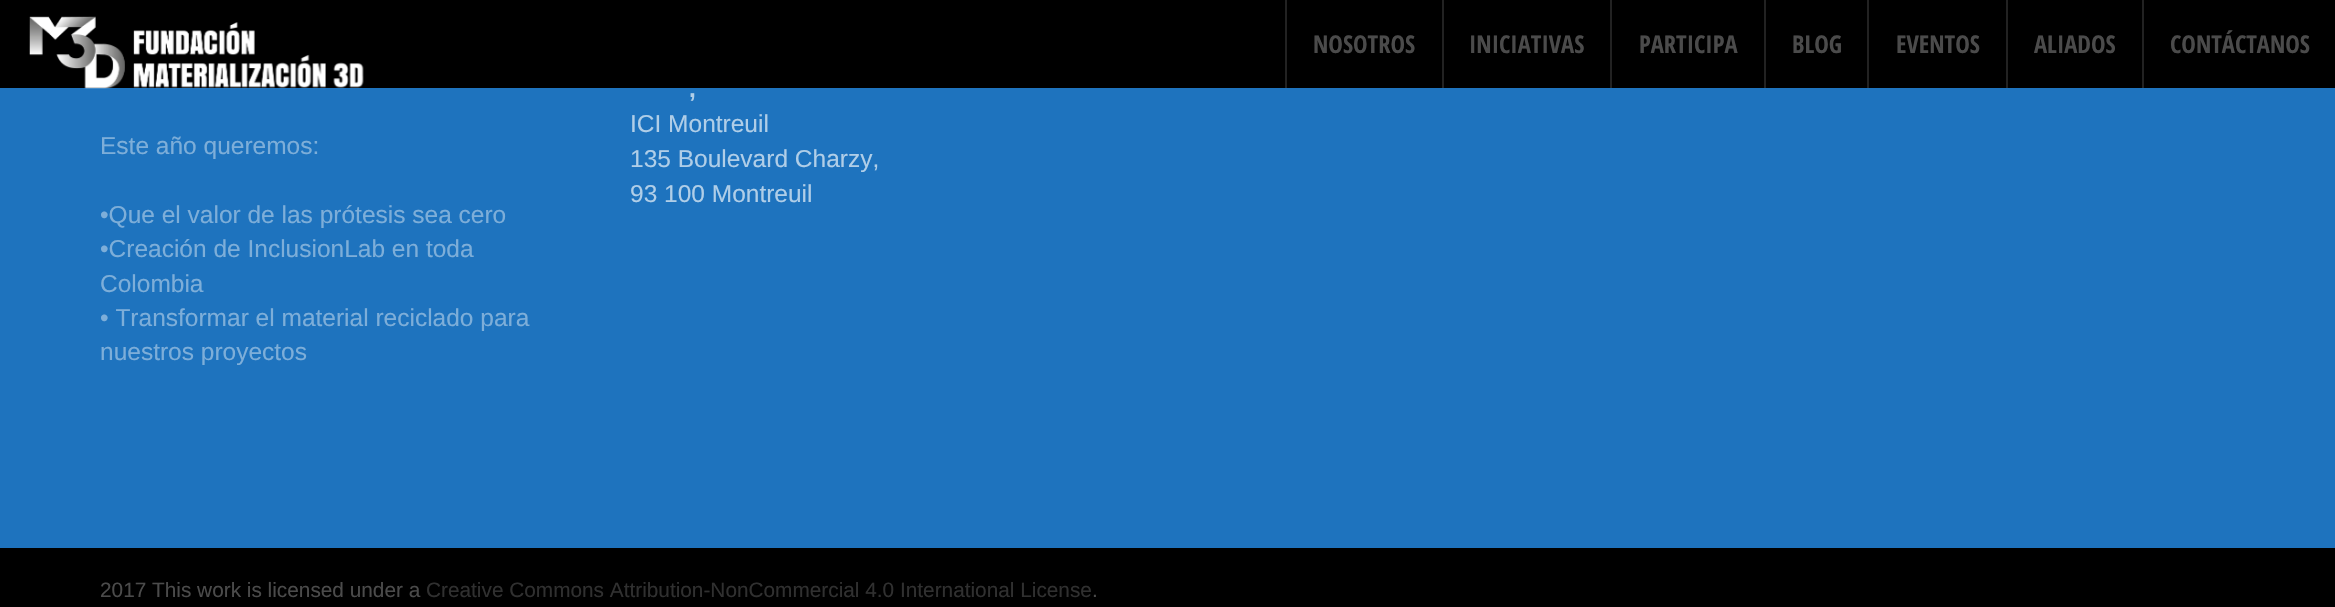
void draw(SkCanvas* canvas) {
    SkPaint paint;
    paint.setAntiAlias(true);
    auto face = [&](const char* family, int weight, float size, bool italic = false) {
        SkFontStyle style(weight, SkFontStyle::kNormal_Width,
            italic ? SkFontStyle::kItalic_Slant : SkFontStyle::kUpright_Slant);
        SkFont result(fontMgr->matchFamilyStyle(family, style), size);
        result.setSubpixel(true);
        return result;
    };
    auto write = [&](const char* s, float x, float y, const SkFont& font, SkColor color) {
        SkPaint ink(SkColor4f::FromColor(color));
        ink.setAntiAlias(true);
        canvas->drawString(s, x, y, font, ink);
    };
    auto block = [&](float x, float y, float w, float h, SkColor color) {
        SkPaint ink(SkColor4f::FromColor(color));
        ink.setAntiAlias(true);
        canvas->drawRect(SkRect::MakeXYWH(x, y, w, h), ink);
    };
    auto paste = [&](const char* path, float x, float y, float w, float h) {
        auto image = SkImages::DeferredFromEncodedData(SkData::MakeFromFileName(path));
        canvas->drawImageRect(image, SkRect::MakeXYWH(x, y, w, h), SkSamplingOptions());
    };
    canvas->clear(SkColorSetRGB(30, 115, 190));
    block(0, 0, 2335, 88, SK_ColorBLACK);
    paste("pic1.png", 29, 16, 335, 73);
    block(1285, 0, 2, 88, SkColorSetRGB(34, 34, 34));
    auto kFont1 = face("Open Sans Condensed", 700, 24.5f);
    write("NOSOTROS", 1313, 53, kFont1, SkColorSetRGB(75, 75, 75));
    block(1442, 0, 2, 88, SkColorSetRGB(34, 34, 34));
    write("INICIATIVAS", 1469, 53, kFont1, SkColorSetRGB(75, 75, 75));
    block(1610, 0, 2, 88, SkColorSetRGB(34, 34, 34));
    write("PARTICIPA", 1639, 53, kFont1, SkColorSetRGB(75, 75, 75));
    block(1764, 0, 2, 88, SkColorSetRGB(34, 34, 34));
    write("BLOG", 1792, 53, kFont1, SkColorSetRGB(75, 75, 75));
    block(1867, 0, 2, 88, SkColorSetRGB(34, 34, 34));
    write("EVENTOS", 1896, 53, kFont1, SkColorSetRGB(75, 75, 75));
    block(2006, 0, 2, 88, SkColorSetRGB(34, 34, 34));
    write("ALIADOS", 2034, 53, kFont1, SkColorSetRGB(75, 75, 75));
    block(2142, 0, 2, 88, SkColorSetRGB(34, 34, 34));
    write("CONTÁCTANOS", 2170, 53, kFont1, SkColorSetRGB(75, 75, 75));
    auto kFont2 = face("Liberation Sans", 400, 24.5f);
    write("Este año queremos:", 100, 154, kFont2, SkColorSetRGB(125, 174, 217));
    write("•Que el valor de las prótesis sea cero", 100, 223, kFont2, SkColorSetRGB(125, 174, 217));
    write("•Creación de InclusionLab en toda", 100, 257, kFont2, SkColorSetRGB(125, 174, 217));
    write("Colombia", 100, 292, kFont2, SkColorSetRGB(125, 174, 217));
    write("• Transformar el material reciclado para", 100, 326, kFont2, SkColorSetRGB(125, 174, 217));
    write("nuestros proyectos", 100, 360, kFont2, SkColorSetRGB(125, 174, 217));
    auto kFont3 = face("Liberation Sans", 700, 24.5f);
    write(",", 689, 97, kFont3, SkColorSetRGB(176, 206, 232));
    write("ICI Montreuil", 630, 132, kFont2, SkColorSetRGB(176, 206, 232));
    write("135 Boulevard Charzy,", 630, 167, kFont2, SkColorSetRGB(176, 206, 232));
    write("93 100 Montreuil", 630, 202, kFont2, SkColorSetRGB(176, 206, 232));
    block(0, 548, 2335, 59, SK_ColorBLACK);
    auto kFont4 = face("Liberation Sans", 400, 20.8f);
    write("2017 This work is licensed under a", 100, 597, kFont4, SkColorSetRGB(75, 75, 75));
    write("Creative Commons Attribution-NonCommercial 4.0 International License", 426, 597, kFont4, SkColorSetRGB(48, 48, 48));
    write(".", 1092, 597, kFont4, SkColorSetRGB(75, 75, 75));
}
